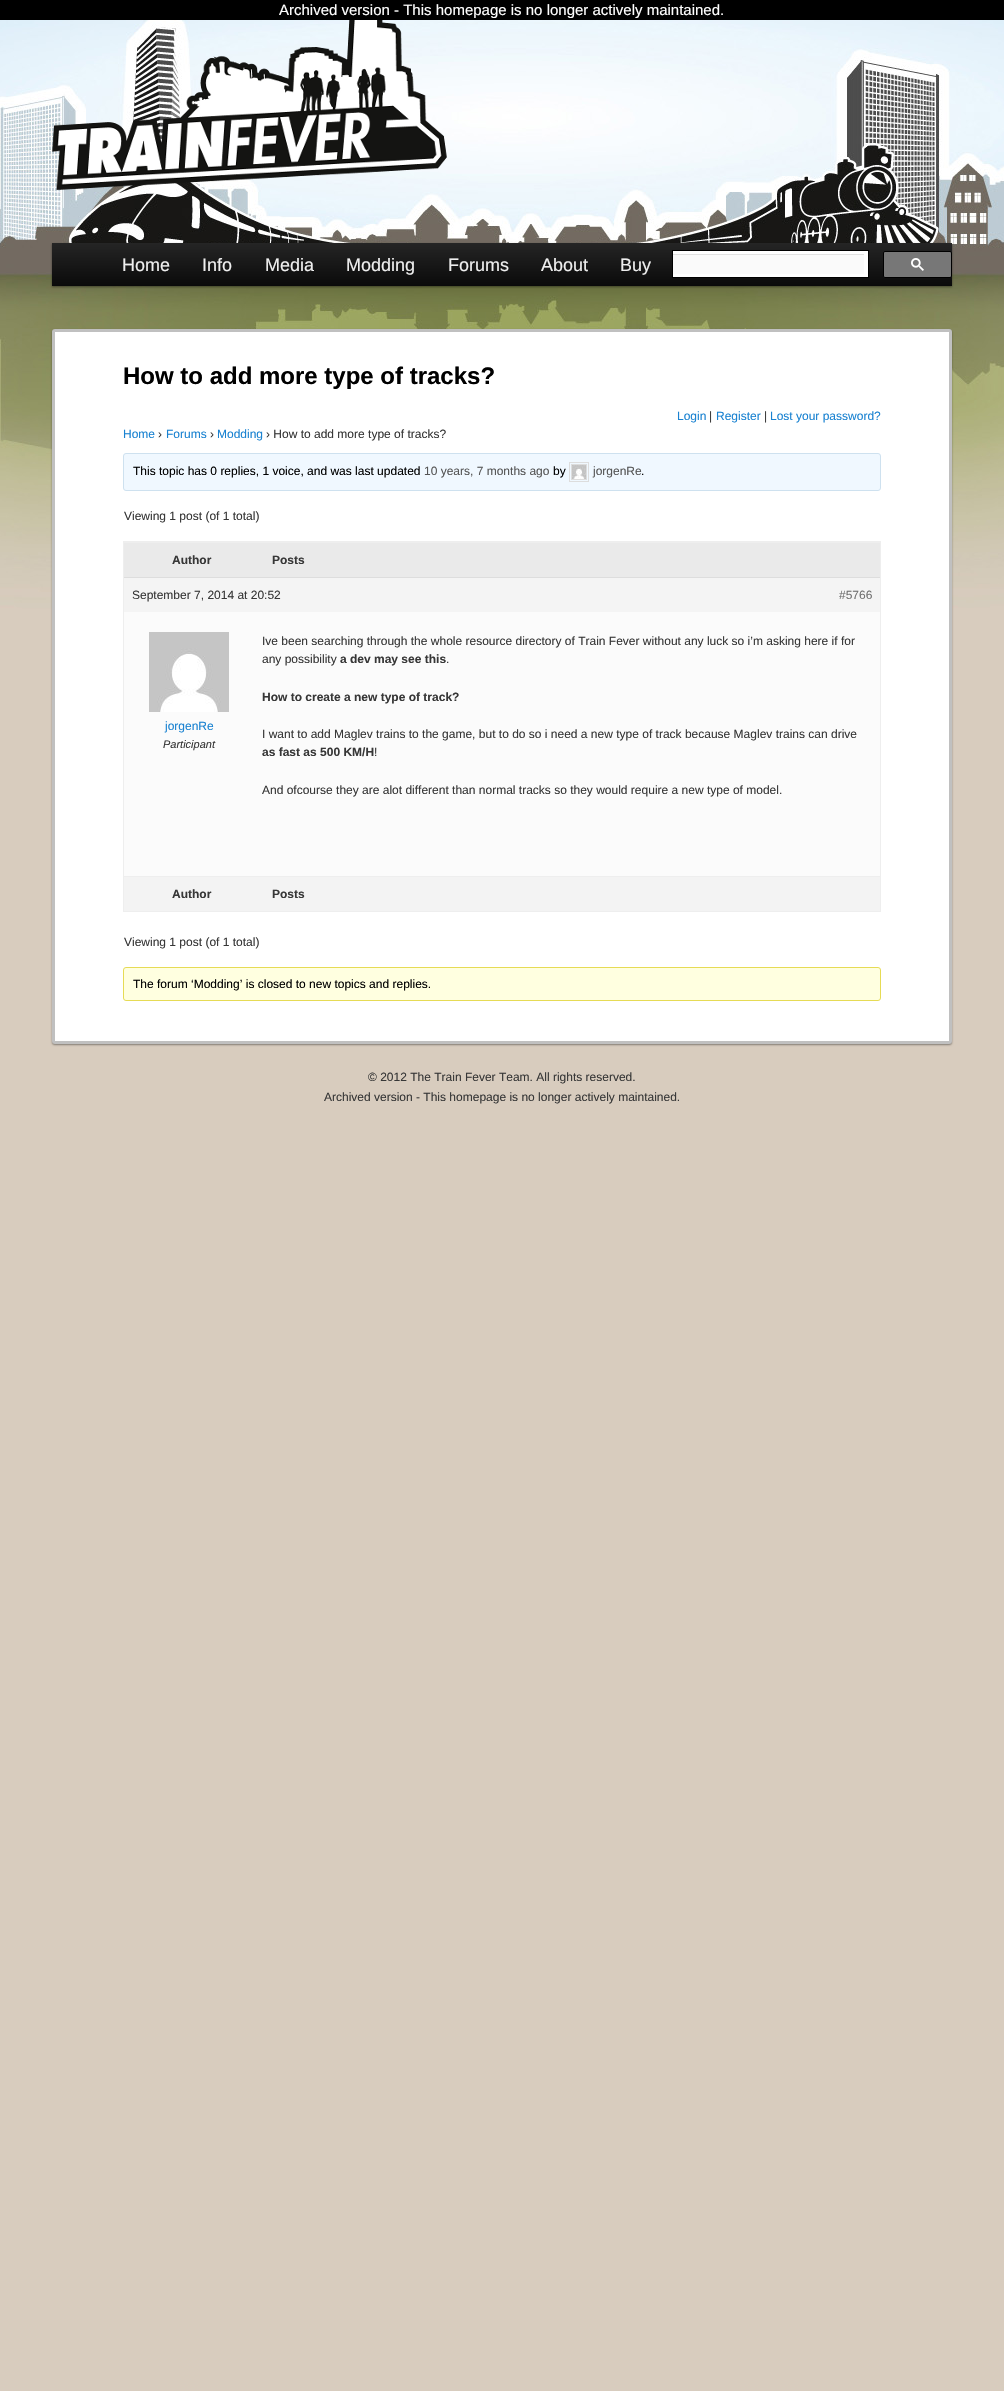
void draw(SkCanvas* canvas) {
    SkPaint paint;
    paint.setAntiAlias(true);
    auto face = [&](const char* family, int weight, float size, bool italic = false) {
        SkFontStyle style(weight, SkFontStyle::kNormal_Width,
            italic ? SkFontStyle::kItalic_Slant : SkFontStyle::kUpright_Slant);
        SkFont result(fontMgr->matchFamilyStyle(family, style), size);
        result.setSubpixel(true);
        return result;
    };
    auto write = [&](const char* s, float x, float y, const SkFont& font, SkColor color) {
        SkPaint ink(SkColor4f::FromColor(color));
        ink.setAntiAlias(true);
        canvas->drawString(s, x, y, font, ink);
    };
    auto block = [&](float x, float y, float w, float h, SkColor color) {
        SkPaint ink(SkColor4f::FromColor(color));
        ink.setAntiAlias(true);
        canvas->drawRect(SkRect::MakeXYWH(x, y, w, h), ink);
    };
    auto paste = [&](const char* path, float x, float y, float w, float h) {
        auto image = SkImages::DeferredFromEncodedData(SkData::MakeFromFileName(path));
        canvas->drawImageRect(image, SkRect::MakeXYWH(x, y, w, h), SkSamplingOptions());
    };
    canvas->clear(SkColorSetRGB(216, 204, 190));
    paste("pic1.png", 0, 20, 1004, 589);
    block(0, 0, 1004, 20, SK_ColorBLACK);
    auto kFont1 = face("Liberation Sans", 400, 15);
    write("Archived version - This homepage is no longer actively maintained.", 279, 15, kFont1, SK_ColorWHITE);
    paste("pic2.png", 52, 20, 395, 170);
    paint.setColor(SkColorSetARGB(102, 0, 0, 0));
    paint.setMaskFilter(SkMaskFilter::MakeBlur(kNormal_SkBlurStyle, 1));
    canvas->drawRect(SkRect::MakeXYWH(52, 244, 900, 43), paint);
    paint.setMaskFilter(nullptr);
    {
        const SkColor colors[] = {SkColorSetRGB(37, 37, 37), SkColorSetRGB(10, 10, 10)};
        const float stops[] = {0, 1};
        const SkPoint ends[] = {{502, 243}, {502, 286}};
        paint.setShader(SkGradientShader::MakeLinear(ends, colors, stops, 2, SkTileMode::kClamp));
        paint.setAlpha(255);
    }
    canvas->drawRect(SkRect::MakeXYWH(52, 243, 900, 43), paint);
    auto kFont2 = face("Liberation Sans", 400, 18);
    write("Home", 122, 271, kFont2, SkColorSetRGB(238, 238, 238));
    write("Info", 202, 271, kFont2, SkColorSetRGB(238, 238, 238));
    write("Media", 265, 271, kFont2, SkColorSetRGB(238, 238, 238));
    write("Modding", 346, 271, kFont2, SkColorSetRGB(238, 238, 238));
    write("Forums", 448, 271, kFont2, SkColorSetRGB(238, 238, 238));
    write("About", 541, 271, kFont2, SkColorSetRGB(238, 238, 238));
    write("Buy", 620, 271, kFont2, SkColorSetRGB(238, 238, 238));
    paint.setShader(nullptr);
    paint.setColor(SK_ColorWHITE);
    canvas->drawRect(SkRect::MakeXYWH(672.5f, 250.5f, 196, 27), paint);
    paint.setStyle(SkPaint::kStroke_Style);
    paint.setStrokeWidth(1);
    paint.setColor(SK_ColorBLACK);
    canvas->drawRect(SkRect::MakeXYWH(672.5f, 250.5f, 196, 27), paint);
    block(673, 255, 191, 19, SkColorSetRGB(250, 250, 250));
    block(673, 254, 191, 1, SkColorSetRGB(225, 225, 225));
    paint.setStyle(SkPaint::kFill_Style);
    paint.setColor(SkColorSetRGB(119, 119, 119));
    canvas->drawRoundRect(SkRect::MakeXYWH(883.5f, 251.5f, 68, 26), 1.5f, 1.5f, paint);
    paint.setStyle(SkPaint::kStroke_Style);
    paint.setColor(SK_ColorBLACK);
    canvas->drawRoundRect(SkRect::MakeXYWH(883.5f, 251.5f, 68, 26), 1.5f, 1.5f, paint);
    paste("pic3.png", 911, 258, 13, 13);
    paint.setStyle(SkPaint::kFill_Style);
    paint.setColor(SkColorSetARGB(102, 0, 0, 0));
    paint.setMaskFilter(SkMaskFilter::MakeBlur(kNormal_SkBlurStyle, 1));
    canvas->drawRoundRect(SkRect::MakeXYWH(52, 330, 900, 715), 3, 3, paint);
    paint.setMaskFilter(nullptr);
    paint.setColor(SK_ColorWHITE);
    canvas->drawRoundRect(SkRect::MakeXYWH(53.5f, 330.5f, 897, 712), 1.5f, 1.5f, paint);
    paint.setStyle(SkPaint::kStroke_Style);
    paint.setStrokeWidth(3);
    paint.setColor(SkColorSetRGB(192, 192, 192));
    canvas->drawRoundRect(SkRect::MakeXYWH(53.5f, 330.5f, 897, 712), 1.5f, 1.5f, paint);
    auto kFont3 = face("Liberation Sans", 700, 24);
    write("How to add more type of tracks?", 123, 384, kFont3, SK_ColorBLACK);
    auto kFont4 = face("Liberation Sans", 400, 12);
    write("Login", 677, 420, kFont4, SkColorSetRGB(25, 130, 209));
    write("|", 709, 420, kFont4, SkColorSetRGB(55, 55, 55));
    write("Register", 716, 420, kFont4, SkColorSetRGB(25, 130, 209));
    write("|", 764, 420, kFont4, SkColorSetRGB(55, 55, 55));
    write("Lost your password?", 770, 420, kFont4, SkColorSetRGB(25, 130, 209));
    write("Home", 123, 438, kFont4, SkColorSetRGB(25, 130, 209));
    write("›", 158, 438, kFont4, SkColorSetRGB(55, 55, 55));
    write("Forums", 166, 438, kFont4, SkColorSetRGB(25, 130, 209));
    write("›", 210, 438, kFont4, SkColorSetRGB(55, 55, 55));
    write("Modding", 217, 438, kFont4, SkColorSetRGB(25, 130, 209));
    write("› How to add more type of tracks?", 266, 438, kFont4, SkColorSetRGB(55, 55, 55));
    paint.setStyle(SkPaint::kFill_Style);
    paint.setColor(SkColorSetRGB(240, 248, 255));
    canvas->drawRoundRect(SkRect::MakeXYWH(123.5f, 453.5f, 757, 37), 2.5f, 2.5f, paint);
    paint.setStyle(SkPaint::kStroke_Style);
    paint.setStrokeWidth(1);
    paint.setColor(SkColorSetRGB(206, 225, 239));
    canvas->drawRoundRect(SkRect::MakeXYWH(123.5f, 453.5f, 757, 37), 2.5f, 2.5f, paint);
    write("This topic has 0 replies, 1 voice, and was last updated", 133, 475, kFont4, SK_ColorBLACK);
    write("10 years, 7 months ago", 424, 475, kFont4, SkColorSetRGB(85, 85, 85));
    write("by", 553, 475, kFont4, SK_ColorBLACK);
    paint.setColor(SkColorSetRGB(221, 221, 221));
    canvas->drawRect(SkRect::MakeXYWH(569.5f, 462.5f, 19, 19), paint);
    canvas->drawRect(SkRect::MakeXYWH(571.5f, 464.5f, 15, 15), paint);
    paste("pic4.png", 572, 465, 14, 14);
    write("jorgenRe", 593, 475, kFont4, SkColorSetRGB(85, 85, 85));
    write(".", 641, 475, kFont4, SK_ColorBLACK);
    write("Viewing 1 post (of 1 total)", 124, 520, kFont4, SkColorSetRGB(55, 55, 55));
    paint.setColor(SkColorSetRGB(238, 238, 238));
    canvas->drawRect(SkRect::MakeXYWH(123.5f, 541.5f, 757, 370), paint);
    block(124, 543, 756, 34, SkColorSetRGB(234, 234, 234));
    block(124, 542, 756, 1, SkColorSetRGB(238, 238, 238));
    auto kFont5 = face("Liberation Sans", 700, 12);
    write("Author", 172, 564, kFont5, SkColorSetRGB(55, 55, 55));
    write("Posts", 272, 564, kFont5, SkColorSetRGB(55, 55, 55));
    block(124, 578, 756, 34, SkColorSetRGB(244, 244, 244));
    block(124, 577, 756, 1, SkColorSetRGB(221, 221, 221));
    write("September 7, 2014 at 20:52", 132, 599, kFont4, SkColorSetRGB(55, 55, 55));
    write("#5766", 839, 599, kFont4, SkColorSetRGB(112, 112, 112));
    block(124, 612, 756, 264, SkColorSetRGB(251, 251, 251));
    paste("pic5.png", 149, 632, 80, 80);
    write("jorgenRe", 165, 730, kFont4, SkColorSetRGB(25, 130, 209));
    auto kFont6 = face("Liberation Sans", 400, 11, true);
    write("Participant", 163, 748, kFont6, SkColorSetRGB(55, 55, 55));
    write("Ive been searching through the whole resource directory of Train Fever without any luck so i’m asking here if for", 262, 645, kFont4, SkColorSetRGB(55, 55, 55));
    write("any possibility", 262, 663, kFont4, SkColorSetRGB(55, 55, 55));
    write("a dev may see this", 340, 663, kFont5, SkColorSetRGB(55, 55, 55));
    write(".", 446, 663, kFont4, SkColorSetRGB(55, 55, 55));
    write("How to create a new type of track?", 262, 701, kFont5, SkColorSetRGB(55, 55, 55));
    write("I want to add Maglev trains to the game, but to do so i need a new type of track because Maglev trains can drive", 262, 738, kFont4, SkColorSetRGB(55, 55, 55));
    write("as fast as 500 KM/H", 262, 756, kFont5, SkColorSetRGB(55, 55, 55));
    write("!", 374, 756, kFont4, SkColorSetRGB(55, 55, 55));
    write("And ofcourse they are alot different than normal tracks so they would require a new type of model.", 262, 794, kFont4, SkColorSetRGB(55, 55, 55));
    block(124, 877, 756, 34, SkColorSetRGB(243, 243, 243));
    block(124, 876, 756, 1, SkColorSetRGB(238, 238, 238));
    write("Author", 172, 898, kFont5, SkColorSetRGB(55, 55, 55));
    write("Posts", 272, 898, kFont5, SkColorSetRGB(55, 55, 55));
    write("Viewing 1 post (of 1 total)", 124, 946, kFont4, SkColorSetRGB(55, 55, 55));
    paint.setStyle(SkPaint::kFill_Style);
    paint.setColor(SkColorSetRGB(255, 255, 224));
    canvas->drawRoundRect(SkRect::MakeXYWH(123.5f, 967.5f, 757, 33), 2.5f, 2.5f, paint);
    paint.setStyle(SkPaint::kStroke_Style);
    paint.setColor(SkColorSetRGB(230, 219, 85));
    canvas->drawRoundRect(SkRect::MakeXYWH(123.5f, 967.5f, 757, 33), 2.5f, 2.5f, paint);
    write("The forum ‘Modding’ is closed to new topics and replies.", 133, 988, kFont4, SK_ColorBLACK);
    write("© 2012 The Train Fever Team. All rights reserved.", 368, 1081, kFont4, SkColorSetRGB(55, 55, 55));
    write("Archived version - This homepage is no longer actively maintained.", 324, 1101, kFont4, SkColorSetRGB(55, 55, 55));
}
